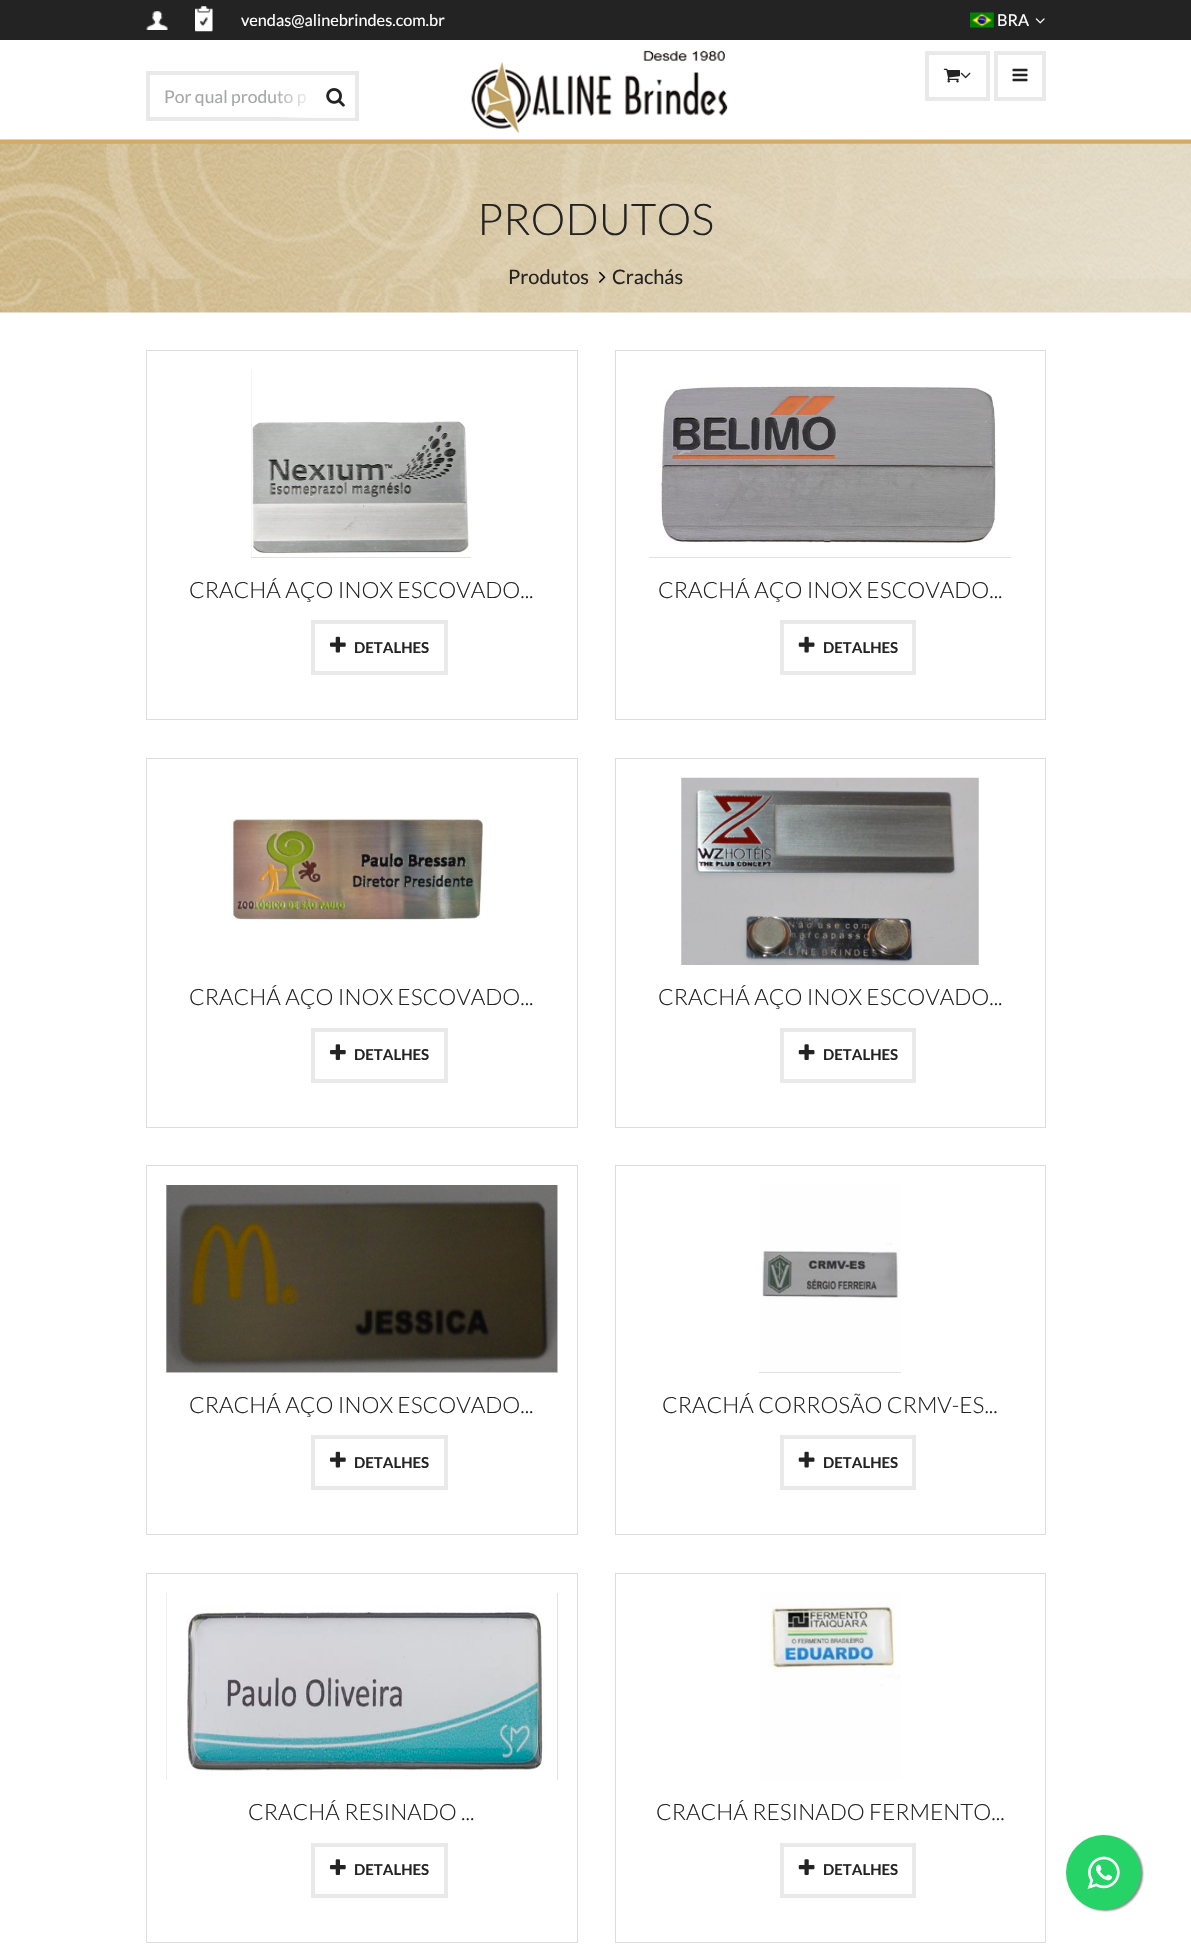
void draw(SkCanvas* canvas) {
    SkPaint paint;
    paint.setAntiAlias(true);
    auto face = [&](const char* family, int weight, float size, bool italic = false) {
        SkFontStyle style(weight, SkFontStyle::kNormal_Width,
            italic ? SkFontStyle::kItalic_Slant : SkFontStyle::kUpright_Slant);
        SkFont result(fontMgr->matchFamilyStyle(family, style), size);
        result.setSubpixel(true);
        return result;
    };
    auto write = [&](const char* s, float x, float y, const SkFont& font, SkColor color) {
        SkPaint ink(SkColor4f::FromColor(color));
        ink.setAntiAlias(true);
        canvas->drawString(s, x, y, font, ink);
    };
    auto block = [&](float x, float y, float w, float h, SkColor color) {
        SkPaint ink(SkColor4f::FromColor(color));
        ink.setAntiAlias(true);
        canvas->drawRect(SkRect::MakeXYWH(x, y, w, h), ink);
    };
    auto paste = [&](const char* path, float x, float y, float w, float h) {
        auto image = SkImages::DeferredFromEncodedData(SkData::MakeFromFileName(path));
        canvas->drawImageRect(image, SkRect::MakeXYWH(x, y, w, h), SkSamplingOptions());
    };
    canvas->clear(SK_ColorWHITE);
    block(0, 0, 1191, 40, SkColorSetRGB(35, 35, 35));
    paste("pic1.png", 146, 11, 22, 19);
    paste("pic2.png", 195, 6, 18, 26);
    auto kFont1 = face("Lato", 400, 16.25f);
    write("vendas@alinebrindes.com.br", 241, 26, kFont1, SK_ColorWHITE);
    paste("pic3.png", 970, 12, 24, 16);
    write("BRA", 997, 26, kFont1, SK_ColorWHITE);
    paste("pic4.png", 1035, 18, 10, 6);
    block(0, 140, 1191, 4, SkColorSetRGB(210, 171, 103));
    paint.setStyle(SkPaint::kStroke_Style);
    paint.setStrokeWidth(4);
    paint.setColor(SkColorSetRGB(233, 233, 233));
    canvas->drawRect(SkRect::MakeXYWH(148, 73, 209, 46), paint);
    auto kFont2 = face("Lato", 400, 17.5f);
    write("Por qual produto p", 164, 103, kFont2, SkColorSetRGB(166, 167, 168));
    block(316, 117, 39, 1, SK_ColorWHITE);
    paint.setStyle(SkPaint::kFill_Style);
    {
        const SkColor colors[] = {SkColorSetARGB(0, 255, 255, 255), SK_ColorWHITE};
        const float stops[] = {0, 1};
        const SkPoint ends[] = {{274, 96}, {316, 96}};
        paint.setShader(SkGradientShader::MakeLinear(ends, colors, stops, 2, SkTileMode::kClamp));
        paint.setAlpha(255);
    }
    canvas->drawRect(SkRect::MakeXYWH(275, 91, 41, 27), paint);
    paste("pic5.png", 326, 88, 19, 19);
    paste("pic6.png", 471, 50, 257, 83);
    paint.setStyle(SkPaint::kStroke_Style);
    paint.setShader(nullptr);
    paint.setColor(SkColorSetRGB(233, 233, 233));
    canvas->drawRect(SkRect::MakeXYWH(927, 53, 61, 46), paint);
    paste("pic7.png", 943, 68, 17, 15);
    paste("pic8.png", 960, 72, 11, 7);
    canvas->drawRect(SkRect::MakeXYWH(996, 53, 48, 46), paint);
    paste("pic9.png", 1012, 68, 16, 14);
    block(0, 139, 1191, 1, SkColorSetRGB(211, 213, 215));
    paste("pic10.png", 0, 143, 1191, 170);
    auto kFont3 = face("Lato", 300, 43.75f);
    write("PRODUTOS", 477, 235, kFont3, SkColorSetRGB(35, 35, 35));
    auto kFont4 = face("Lato", 400, 20);
    write("Produtos", 508, 284, kFont4, SkColorSetRGB(35, 35, 35));
    paste("pic11.png", 598, 271, 8, 12);
    write("Crachás", 612, 284, kFont4, SkColorSetRGB(35, 35, 35));
    paint.setStrokeWidth(1);
    paint.setColor(SkColorSetRGB(221, 221, 221));
    canvas->drawRect(SkRect::MakeXYWH(146.5f, 350.5f, 431, 369), paint);
    block(251, 370, 220, 188, SkColorSetRGB(215, 215, 215));
    paste("pic12.png", 251, 370, 220, 188);
    auto kFont5 = face("Lato", 300, 22.5f);
    write("CRACHÁ AÇO INOX ESCOVADO...", 189, 598, kFont5, SkColorSetRGB(35, 35, 35));
    paint.setStrokeWidth(4);
    paint.setColor(SkColorSetRGB(233, 233, 233));
    canvas->drawRect(SkRect::MakeXYWH(313, 622, 133, 51), paint);
    paste("pic13.png", 330, 636, 16, 17);
    auto kFont6 = face("Lato", 700, 15);
    write("DETALHES", 354, 653, kFont6, SkColorSetRGB(35, 35, 35));
    paint.setStrokeWidth(1);
    paint.setColor(SkColorSetRGB(221, 221, 221));
    canvas->drawRect(SkRect::MakeXYWH(615.5f, 350.5f, 430, 369), paint);
    block(649, 557, 362, 1, SkColorSetRGB(215, 215, 215));
    paste("pic14.png", 649, 370, 362, 188);
    write("CRACHÁ AÇO INOX ESCOVADO...", 658, 598, kFont5, SkColorSetRGB(35, 35, 35));
    paint.setStrokeWidth(4);
    paint.setColor(SkColorSetRGB(233, 233, 233));
    canvas->drawRect(SkRect::MakeXYWH(782, 622, 132, 51), paint);
    paste("pic15.png", 798, 636, 17, 17);
    write("DETALHES", 823, 653, kFont6, SkColorSetRGB(35, 35, 35));
    paint.setStrokeWidth(1);
    paint.setColor(SkColorSetRGB(221, 221, 221));
    canvas->drawRect(SkRect::MakeXYWH(146.5f, 758.5f, 431, 369), paint);
    paste("pic16.png", 209, 778, 305, 187);
    write("CRACHÁ AÇO INOX ESCOVADO...", 189, 1005, kFont5, SkColorSetRGB(35, 35, 35));
    paint.setStrokeWidth(4);
    paint.setColor(SkColorSetRGB(233, 233, 233));
    canvas->drawRect(SkRect::MakeXYWH(313, 1030, 133, 51), paint);
    paste("pic17.png", 330, 1044, 16, 16);
    write("DETALHES", 354, 1060, kFont6, SkColorSetRGB(35, 35, 35));
    paint.setStrokeWidth(1);
    paint.setColor(SkColorSetRGB(221, 221, 221));
    canvas->drawRect(SkRect::MakeXYWH(615.5f, 758.5f, 430, 369), paint);
    paste("pic18.png", 681, 777, 298, 188);
    write("CRACHÁ AÇO INOX ESCOVADO...", 658, 1005, kFont5, SkColorSetRGB(35, 35, 35));
    paint.setStrokeWidth(4);
    paint.setColor(SkColorSetRGB(233, 233, 233));
    canvas->drawRect(SkRect::MakeXYWH(782, 1030, 132, 51), paint);
    paste("pic19.png", 798, 1044, 17, 16);
    write("DETALHES", 823, 1060, kFont6, SkColorSetRGB(35, 35, 35));
    paint.setStrokeWidth(1);
    paint.setColor(SkColorSetRGB(221, 221, 221));
    canvas->drawRect(SkRect::MakeXYWH(146.5f, 1165.5f, 431, 369), paint);
    block(166, 1185, 392, 188, SkColorSetRGB(215, 215, 215));
    paste("pic20.png", 166, 1185, 392, 188);
    write("CRACHÁ AÇO INOX ESCOVADO...", 189, 1413, kFont5, SkColorSetRGB(35, 35, 35));
    paint.setStrokeWidth(4);
    paint.setColor(SkColorSetRGB(233, 233, 233));
    canvas->drawRect(SkRect::MakeXYWH(313, 1437, 133, 51), paint);
    paste("pic13.png", 330, 1451, 16, 17);
    write("DETALHES", 354, 1468, kFont6, SkColorSetRGB(35, 35, 35));
    paint.setStrokeWidth(1);
    paint.setColor(SkColorSetRGB(221, 221, 221));
    canvas->drawRect(SkRect::MakeXYWH(615.5f, 1165.5f, 430, 369), paint);
    block(759, 1372, 142, 1, SkColorSetRGB(215, 215, 215));
    paste("pic21.png", 759, 1185, 142, 188);
    write("CRACHÁ CORROSÃO CRMV-ES...", 662, 1413, kFont5, SkColorSetRGB(35, 35, 35));
    paint.setStrokeWidth(4);
    paint.setColor(SkColorSetRGB(233, 233, 233));
    canvas->drawRect(SkRect::MakeXYWH(782, 1437, 132, 51), paint);
    paste("pic15.png", 798, 1451, 17, 17);
    write("DETALHES", 823, 1468, kFont6, SkColorSetRGB(35, 35, 35));
    paint.setStrokeWidth(1);
    paint.setColor(SkColorSetRGB(221, 221, 221));
    canvas->drawRect(SkRect::MakeXYWH(146.5f, 1573.5f, 431, 369), paint);
    block(166, 1593, 392, 187, SkColorSetRGB(215, 215, 215));
    paste("pic22.png", 166, 1593, 392, 187);
    write("CRACHÁ RESINADO ...", 248, 1820, kFont5, SkColorSetRGB(35, 35, 35));
    paint.setStrokeWidth(4);
    paint.setColor(SkColorSetRGB(233, 233, 233));
    canvas->drawRect(SkRect::MakeXYWH(313, 1845, 133, 51), paint);
    paste("pic17.png", 330, 1859, 16, 16);
    write("DETALHES", 354, 1875, kFont6, SkColorSetRGB(35, 35, 35));
    paint.setStrokeWidth(1);
    paint.setColor(SkColorSetRGB(221, 221, 221));
    canvas->drawRect(SkRect::MakeXYWH(615.5f, 1573.5f, 430, 369), paint);
    paste("pic23.png", 759, 1593, 142, 187);
    write("CRACHÁ RESINADO FERMENTO...", 656, 1820, kFont5, SkColorSetRGB(35, 35, 35));
    paint.setStrokeWidth(4);
    paint.setColor(SkColorSetRGB(233, 233, 233));
    canvas->drawRect(SkRect::MakeXYWH(782, 1845, 132, 51), paint);
    paste("pic19.png", 798, 1859, 17, 16);
    write("DETALHES", 823, 1875, kFont6, SkColorSetRGB(35, 35, 35));
    paint.setStyle(SkPaint::kFill_Style);
    paint.setColor(SkColorSetRGB(136, 136, 136));
    paint.setMaskFilter(SkMaskFilter::MakeBlur(kNormal_SkBlurStyle, 1));
    canvas->drawRoundRect(SkRect::MakeXYWH(1068, 1836, 75, 75), 37.5f, 37.5f, paint);
    paint.setMaskFilter(nullptr);
    paint.setColor(SkColorSetRGB(37, 211, 102));
    canvas->drawCircle(1103.5f, 1872.5f, 37.5f, paint);
    paste("pic24.png", 1087, 1856, 33, 33);
}
